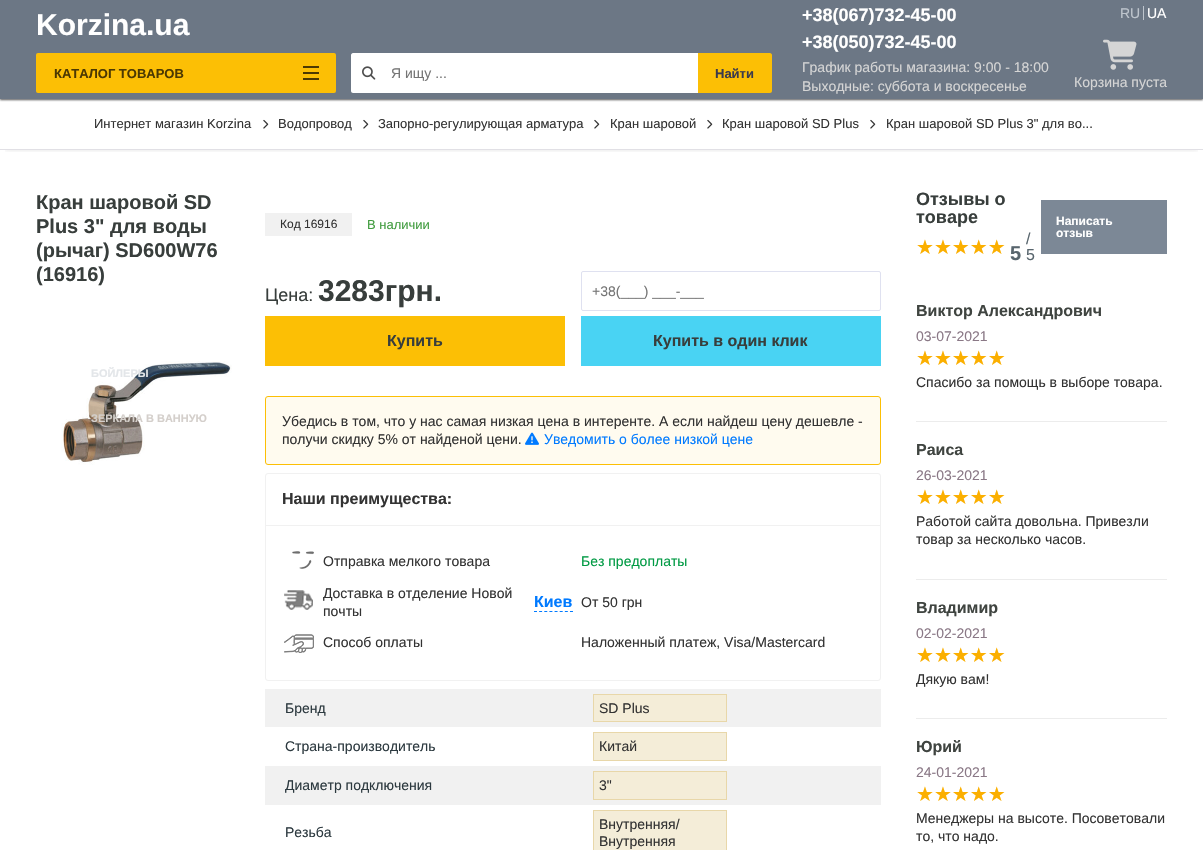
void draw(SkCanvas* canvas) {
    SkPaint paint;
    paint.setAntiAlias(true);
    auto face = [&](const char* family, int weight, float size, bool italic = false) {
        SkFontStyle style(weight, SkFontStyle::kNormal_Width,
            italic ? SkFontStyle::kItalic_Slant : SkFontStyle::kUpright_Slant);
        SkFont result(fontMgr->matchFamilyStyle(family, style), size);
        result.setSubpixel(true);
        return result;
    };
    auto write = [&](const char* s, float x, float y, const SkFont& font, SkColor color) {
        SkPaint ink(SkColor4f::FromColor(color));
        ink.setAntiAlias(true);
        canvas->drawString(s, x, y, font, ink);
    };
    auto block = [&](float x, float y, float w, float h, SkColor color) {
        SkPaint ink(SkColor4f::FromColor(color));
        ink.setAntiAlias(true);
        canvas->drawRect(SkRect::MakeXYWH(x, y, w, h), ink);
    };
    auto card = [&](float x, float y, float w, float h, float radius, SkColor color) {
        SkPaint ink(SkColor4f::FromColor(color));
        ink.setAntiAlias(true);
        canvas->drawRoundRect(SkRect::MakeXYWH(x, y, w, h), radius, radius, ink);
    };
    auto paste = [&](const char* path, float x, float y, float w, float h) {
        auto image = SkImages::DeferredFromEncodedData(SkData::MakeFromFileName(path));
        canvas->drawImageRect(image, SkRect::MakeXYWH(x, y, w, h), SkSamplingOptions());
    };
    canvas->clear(SK_ColorWHITE);
    paint.setColor(SkColorSetARGB(179, 12, 12, 13));
    paint.setMaskFilter(SkMaskFilter::MakeBlur(kNormal_SkBlurStyle, 1));
    canvas->drawRect(SkRect::MakeXYWH(0, 1, 1203, 99), paint);
    paint.setMaskFilter(nullptr);
    block(0, 0, 1203, 99, SkColorSetRGB(108, 119, 133));
    auto kFont1 = face("Liberation Sans", 700, 30);
    write("Korzina.ua", 36, 35, kFont1, SK_ColorWHITE);
    card(36, 53, 300, 40, 2, SkColorSetRGB(252, 191, 5));
    auto kFont2 = face("Liberation Sans", 700, 13);
    write("КАТАЛОГ ТОВАРОВ", 54, 78, kFont2, SkColorSetRGB(76, 57, 2));
    block(303, 66, 16, 2, SkColorSetRGB(76, 57, 2));
    block(303, 72, 16, 2, SkColorSetRGB(76, 57, 2));
    block(303, 78, 16, 2, SkColorSetRGB(76, 57, 2));
    paste("pic4.png", 61, 361, 171, 104);
    auto kFont3 = face("Liberation Sans", 700, 11);
    write("БОЙЛЕРЫ", 91, 377, kFont3, SkColorSetRGB(227, 230, 233));
    write("ЗЕРКАЛА В ВАННУЮ", 91, 422, kFont3, SkColorSetRGB(212, 207, 203));
    paint.setColor(SK_ColorWHITE);
    canvas->drawPath(SkPathBuilder().moveTo(353, 53).lineTo(698, 53).lineTo(698, 93).lineTo(353, 93).cubicTo(352, 93, 351, 92, 351, 91).lineTo(351, 55).cubicTo(351, 54, 352, 53, 353, 53).close().detach(), paint);
    paste("pic1.png", 362, 66, 14, 14);
    auto kFont4 = face("Liberation Sans", 400, 14);
    write("Я ищу ...", 391, 78, kFont4, SkColorSetRGB(117, 117, 117));
    paint.setColor(SkColorSetRGB(252, 191, 5));
    canvas->drawPath(SkPathBuilder().moveTo(698, 53).lineTo(770, 53).cubicTo(771, 53, 772, 54, 772, 55).lineTo(772, 91).cubicTo(772, 92, 771, 93, 770, 93).lineTo(698, 93).close().detach(), paint);
    write("Найти", 715, 78, kFont2, SkColorSetRGB(59, 58, 76));
    auto kFont5 = face("Liberation Sans", 700, 18);
    write("+38(067)732-45-00", 802, 21, kFont5, SK_ColorWHITE);
    write("+38(050)732-45-00", 802, 48, kFont5, SK_ColorWHITE);
    write("График работы магазина: 9:00 - 18:00", 802, 72, kFont4, SkColorSetRGB(213, 213, 213));
    write("Выходные: суббота и воскресенье", 802, 91, kFont4, SkColorSetRGB(213, 213, 213));
    write("RU", 1120, 18, kFont4, SkColorSetRGB(190, 197, 205));
    block(1143, 6, 1, 14, SkColorSetRGB(190, 197, 205));
    write("UA", 1147, 18, kFont4, SK_ColorWHITE);
    paste("pic2.png", 1103, 39, 34, 31);
    write("Корзина пуста", 1074, 87, kFont4, SkColorSetRGB(213, 213, 213));
    canvas->save();
    canvas->clipRect(SkRect::MakeXYWH(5, 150, 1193, 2));
    paint.setColor(SkColorSetARGB(26, 0, 0, 0));
    paint.setMaskFilter(SkMaskFilter::MakeBlur(kNormal_SkBlurStyle, 2.5f));
    canvas->drawRect(SkRect::MakeXYWH(5, 109, 1193, 41), paint);
    paint.setMaskFilter(nullptr);
    canvas->restore();
    block(0, 149, 1203, 1, SkColorSetRGB(225, 224, 229));
    auto kFont6 = face("Liberation Sans", 400, 13);
    write("Интернет магазин Korzina", 94, 128, kFont6, SkColorSetRGB(51, 51, 51));
    paste("pic3.png", 263, 119, 6, 10);
    write("Водопровод", 278, 128, kFont6, SkColorSetRGB(51, 51, 51));
    paste("pic3.png", 363, 119, 6, 10);
    write("Запорно-регулирующая арматура", 378, 128, kFont6, SkColorSetRGB(51, 51, 51));
    paste("pic3.png", 594, 119, 6, 10);
    write("Кран шаровой", 610, 128, kFont6, SkColorSetRGB(51, 51, 51));
    paste("pic3.png", 707, 119, 6, 10);
    write("Кран шаровой SD Plus", 722, 128, kFont6, SkColorSetRGB(51, 51, 51));
    paste("pic3.png", 870, 119, 6, 10);
    write("Кран шаровой SD Plus 3\" для во...", 886, 128, kFont6, SkColorSetRGB(51, 51, 51));
    auto kFont7 = face("Liberation Sans", 700, 20);
    write("Кран шаровой SD", 36, 209, kFont7, SkColorSetRGB(56, 62, 60));
    write("Plus 3\" для воды", 36, 233, kFont7, SkColorSetRGB(56, 62, 60));
    write("(рычаг) SD600W76", 36, 257, kFont7, SkColorSetRGB(56, 62, 60));
    write("(16916)", 36, 281, kFont7, SkColorSetRGB(56, 62, 60));
    block(265, 213, 87, 23, SkColorSetRGB(241, 241, 241));
    auto kFont8 = face("Liberation Sans", 400, 12);
    write("Код 16916", 280, 228, kFont8, SkColorSetRGB(51, 51, 51));
    write("В наличии", 367, 229, kFont6, SkColorSetRGB(65, 156, 63));
    auto kFont9 = face("Liberation Sans", 400, 18);
    write("Цена:", 265, 301, kFont9, SkColorSetRGB(56, 62, 60));
    write("3283грн.", 318, 301, kFont1, SkColorSetRGB(56, 62, 60));
    block(265, 316, 300, 50, SkColorSetRGB(252, 191, 5));
    auto kFont10 = face("Liberation Sans", 700, 16);
    write("Купить", 387, 346, kFont10, SkColorSetRGB(56, 62, 60));
    paint.setStyle(SkPaint::kStroke_Style);
    paint.setStrokeWidth(1);
    paint.setColor(SkColorSetRGB(223, 225, 240));
    canvas->drawRoundRect(SkRect::MakeXYWH(581.5f, 271.5f, 299, 39), 1.5f, 1.5f, paint);
    write("+38(___) ___-___", 592, 296, kFont4, SkColorSetRGB(117, 117, 117));
    block(581, 316, 300, 50, SkColorSetRGB(73, 211, 243));
    write("Купить в один клик", 653, 346, kFont10, SkColorSetRGB(56, 62, 60));
    paint.setStyle(SkPaint::kFill_Style);
    paint.setColor(SkColorSetRGB(255, 251, 239));
    canvas->drawRoundRect(SkRect::MakeXYWH(265.5f, 396.5f, 615, 68), 2.5f, 2.5f, paint);
    paint.setStyle(SkPaint::kStroke_Style);
    paint.setColor(SkColorSetRGB(252, 191, 5));
    canvas->drawRoundRect(SkRect::MakeXYWH(265.5f, 396.5f, 615, 68), 2.5f, 2.5f, paint);
    write("Убедись в том, что у нас самая низкая цена в интеренте. А если найдеш цену дешевле -", 282, 426, kFont4, SkColorSetRGB(51, 51, 51));
    write("получи скидку 5% от найденой цени.", 282, 444, kFont4, SkColorSetRGB(51, 51, 51));
    paste("pic5.png", 525, 432, 14, 13);
    write("Уведомить о более низкой цене", 544, 444, kFont4, SkColorSetRGB(0, 122, 255));
    paint.setColor(SkColorSetRGB(241, 241, 241));
    canvas->drawRoundRect(SkRect::MakeXYWH(265.5f, 473.5f, 615, 207), 2.5f, 2.5f, paint);
    block(266, 525, 614, 1, SkColorSetRGB(241, 241, 241));
    write("Наши преимущества:", 282, 504, kFont10, SkColorSetRGB(51, 51, 51));
    paste("pic6.png", 292, 551, 22, 18);
    write("Отправка мелкого товара", 323, 566, kFont4, SkColorSetRGB(51, 51, 51));
    write("Без предоплаты", 581, 566, kFont4, SkColorSetRGB(0, 154, 67));
    paste("pic7.png", 284, 590, 29, 20);
    write("Доставка в отделение Новой", 323, 598, kFont4, SkColorSetRGB(51, 51, 51));
    paint.setColor(SkColorSetRGB(0, 122, 255));
    paint.setPathEffect(SkDashPathEffect::Make({{3, 2.14f}}, 0));
    canvas->drawPath(SkPathBuilder().moveTo(534, 611.5f).lineTo(573, 611.5f).detach(), paint);
    paint.setPathEffect(nullptr);
    write("Киев", 534, 607, kFont10, SkColorSetRGB(0, 122, 255));
    write("почты", 323, 616, kFont4, SkColorSetRGB(51, 51, 51));
    write("От 50 грн", 581, 607, kFont4, SkColorSetRGB(51, 51, 51));
    paste("pic8.png", 284, 634, 30, 19);
    write("Способ оплаты", 323, 647, kFont4, SkColorSetRGB(51, 51, 51));
    write("Наложенный платеж, Visa/Mastercard", 581, 647, kFont4, SkColorSetRGB(51, 51, 51));
    block(265, 689, 616, 38, SkColorSetRGB(241, 241, 241));
    write("Бренд", 285, 713, kFont4, SkColorSetRGB(44, 57, 63));
    paint.setStyle(SkPaint::kFill_Style);
    paint.setColor(SkColorSetRGB(244, 237, 216));
    canvas->drawRect(SkRect::MakeXYWH(593.5f, 694.5f, 133, 27), paint);
    paint.setStyle(SkPaint::kStroke_Style);
    paint.setColor(SkColorSetRGB(232, 215, 169));
    canvas->drawRect(SkRect::MakeXYWH(593.5f, 694.5f, 133, 27), paint);
    write("SD Plus", 599, 713, kFont4, SkColorSetRGB(51, 51, 51));
    write("Страна-производитель", 285, 751, kFont4, SkColorSetRGB(44, 57, 63));
    paint.setStyle(SkPaint::kFill_Style);
    paint.setColor(SkColorSetRGB(244, 237, 216));
    canvas->drawRect(SkRect::MakeXYWH(593.5f, 732.5f, 133, 28), paint);
    paint.setStyle(SkPaint::kStroke_Style);
    paint.setColor(SkColorSetRGB(232, 215, 169));
    canvas->drawRect(SkRect::MakeXYWH(593.5f, 732.5f, 133, 28), paint);
    write("Китай", 599, 751, kFont4, SkColorSetRGB(51, 51, 51));
    block(265, 766, 616, 39, SkColorSetRGB(241, 241, 241));
    write("Диаметр подключения", 285, 790, kFont4, SkColorSetRGB(44, 57, 63));
    paint.setStyle(SkPaint::kFill_Style);
    paint.setColor(SkColorSetRGB(244, 237, 216));
    canvas->drawRect(SkRect::MakeXYWH(593.5f, 771.5f, 133, 28), paint);
    paint.setStyle(SkPaint::kStroke_Style);
    paint.setColor(SkColorSetRGB(232, 215, 169));
    canvas->drawRect(SkRect::MakeXYWH(593.5f, 771.5f, 133, 28), paint);
    write("3\"", 599, 790, kFont4, SkColorSetRGB(51, 51, 51));
    write("Резьба", 285, 837, kFont4, SkColorSetRGB(44, 57, 63));
    paint.setStyle(SkPaint::kFill_Style);
    paint.setColor(SkColorSetRGB(244, 237, 216));
    canvas->drawRect(SkRect::MakeXYWH(593.5f, 810.5f, 133, 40), paint);
    paint.setStyle(SkPaint::kStroke_Style);
    paint.setColor(SkColorSetRGB(232, 215, 169));
    canvas->drawRect(SkRect::MakeXYWH(593.5f, 810.5f, 133, 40), paint);
    write("Внутренняя/", 599, 829, kFont4, SkColorSetRGB(51, 51, 51));
    write("Внутренняя", 599, 846, kFont4, SkColorSetRGB(51, 51, 51));
    write("Отзывы о", 916, 205, kFont5, SkColorSetRGB(56, 62, 60));
    write("товаре", 916, 223, kFont5, SkColorSetRGB(56, 62, 60));
    auto kFont11 = face("DejaVu Sans", 400, 20);
    write("★★★★★", 916, 254, kFont11, SkColorSetRGB(251, 175, 0));
    write("5", 1010, 260, kFont7, SkColorSetRGB(88, 101, 109));
    auto kFont12 = face("Liberation Sans", 400, 16);
    write("/", 1026, 244, kFont12, SkColorSetRGB(88, 101, 109));
    write("5", 1026, 260, kFont12, SkColorSetRGB(88, 101, 109));
    block(1041, 200, 126, 54, SkColorSetRGB(124, 136, 150));
    auto kFont13 = face("Liberation Sans", 700, 12);
    write("Написать", 1056, 225, kFont13, SK_ColorWHITE);
    write("отзыв", 1056, 237, kFont13, SK_ColorWHITE);
    block(916, 421, 251, 1, SkColorSetRGB(236, 236, 236));
    write("Виктор Александрович", 916, 316, kFont10, SkColorSetRGB(63, 68, 64));
    write("03-07-2021", 916, 341, kFont4, SkColorSetRGB(138, 120, 134));
    write("★★★★★", 916, 365, kFont11, SkColorSetRGB(251, 175, 0));
    write("Спасибо за помощь в выборе товара.", 916, 387, kFont4, SkColorSetRGB(51, 51, 51));
    block(916, 579, 251, 1, SkColorSetRGB(236, 236, 236));
    write("Раиса", 916, 455, kFont10, SkColorSetRGB(63, 68, 64));
    write("26-03-2021", 916, 480, kFont4, SkColorSetRGB(138, 120, 134));
    write("★★★★★", 916, 504, kFont11, SkColorSetRGB(251, 175, 0));
    write("Работой сайта довольна. Привезли", 916, 526, kFont4, SkColorSetRGB(51, 51, 51));
    write("товар за несколько часов.", 916, 544, kFont4, SkColorSetRGB(51, 51, 51));
    block(916, 718, 251, 1, SkColorSetRGB(236, 236, 236));
    write("Владимир", 916, 613, kFont10, SkColorSetRGB(63, 68, 64));
    write("02-02-2021", 916, 638, kFont4, SkColorSetRGB(138, 120, 134));
    write("★★★★★", 916, 662, kFont11, SkColorSetRGB(251, 175, 0));
    write("Дякую вам!", 916, 684, kFont4, SkColorSetRGB(51, 51, 51));
    write("Юрий", 916, 752, kFont10, SkColorSetRGB(63, 68, 64));
    write("24-01-2021", 916, 777, kFont4, SkColorSetRGB(138, 120, 134));
    write("★★★★★", 916, 801, kFont11, SkColorSetRGB(251, 175, 0));
    write("Менеджеры на высоте. Посоветовали", 916, 823, kFont4, SkColorSetRGB(51, 51, 51));
    write("то, что надо.", 916, 841, kFont4, SkColorSetRGB(51, 51, 51));
}
